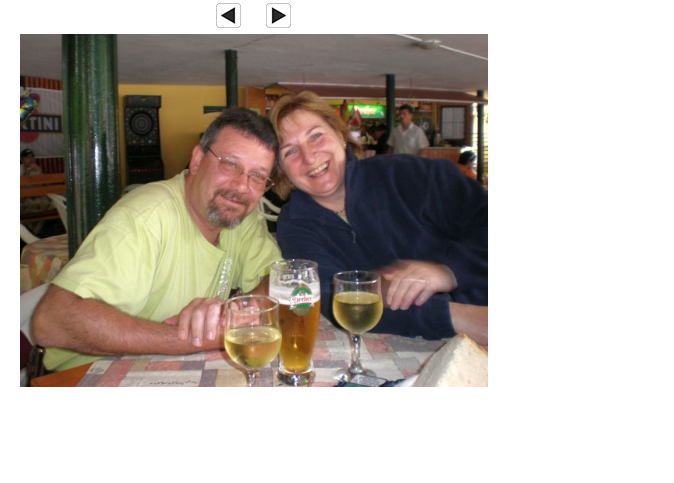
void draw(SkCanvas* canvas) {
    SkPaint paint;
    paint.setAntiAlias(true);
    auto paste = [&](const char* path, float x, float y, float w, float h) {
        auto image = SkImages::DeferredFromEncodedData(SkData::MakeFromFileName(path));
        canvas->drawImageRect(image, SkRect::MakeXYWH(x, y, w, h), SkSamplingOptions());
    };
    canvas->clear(SK_ColorWHITE);
    paste("pic1.png", 216, 3, 25, 25);
    paste("pic2.png", 266, 3, 25, 25);
    paste("pic3.png", 20, 34, 468, 353);
}
